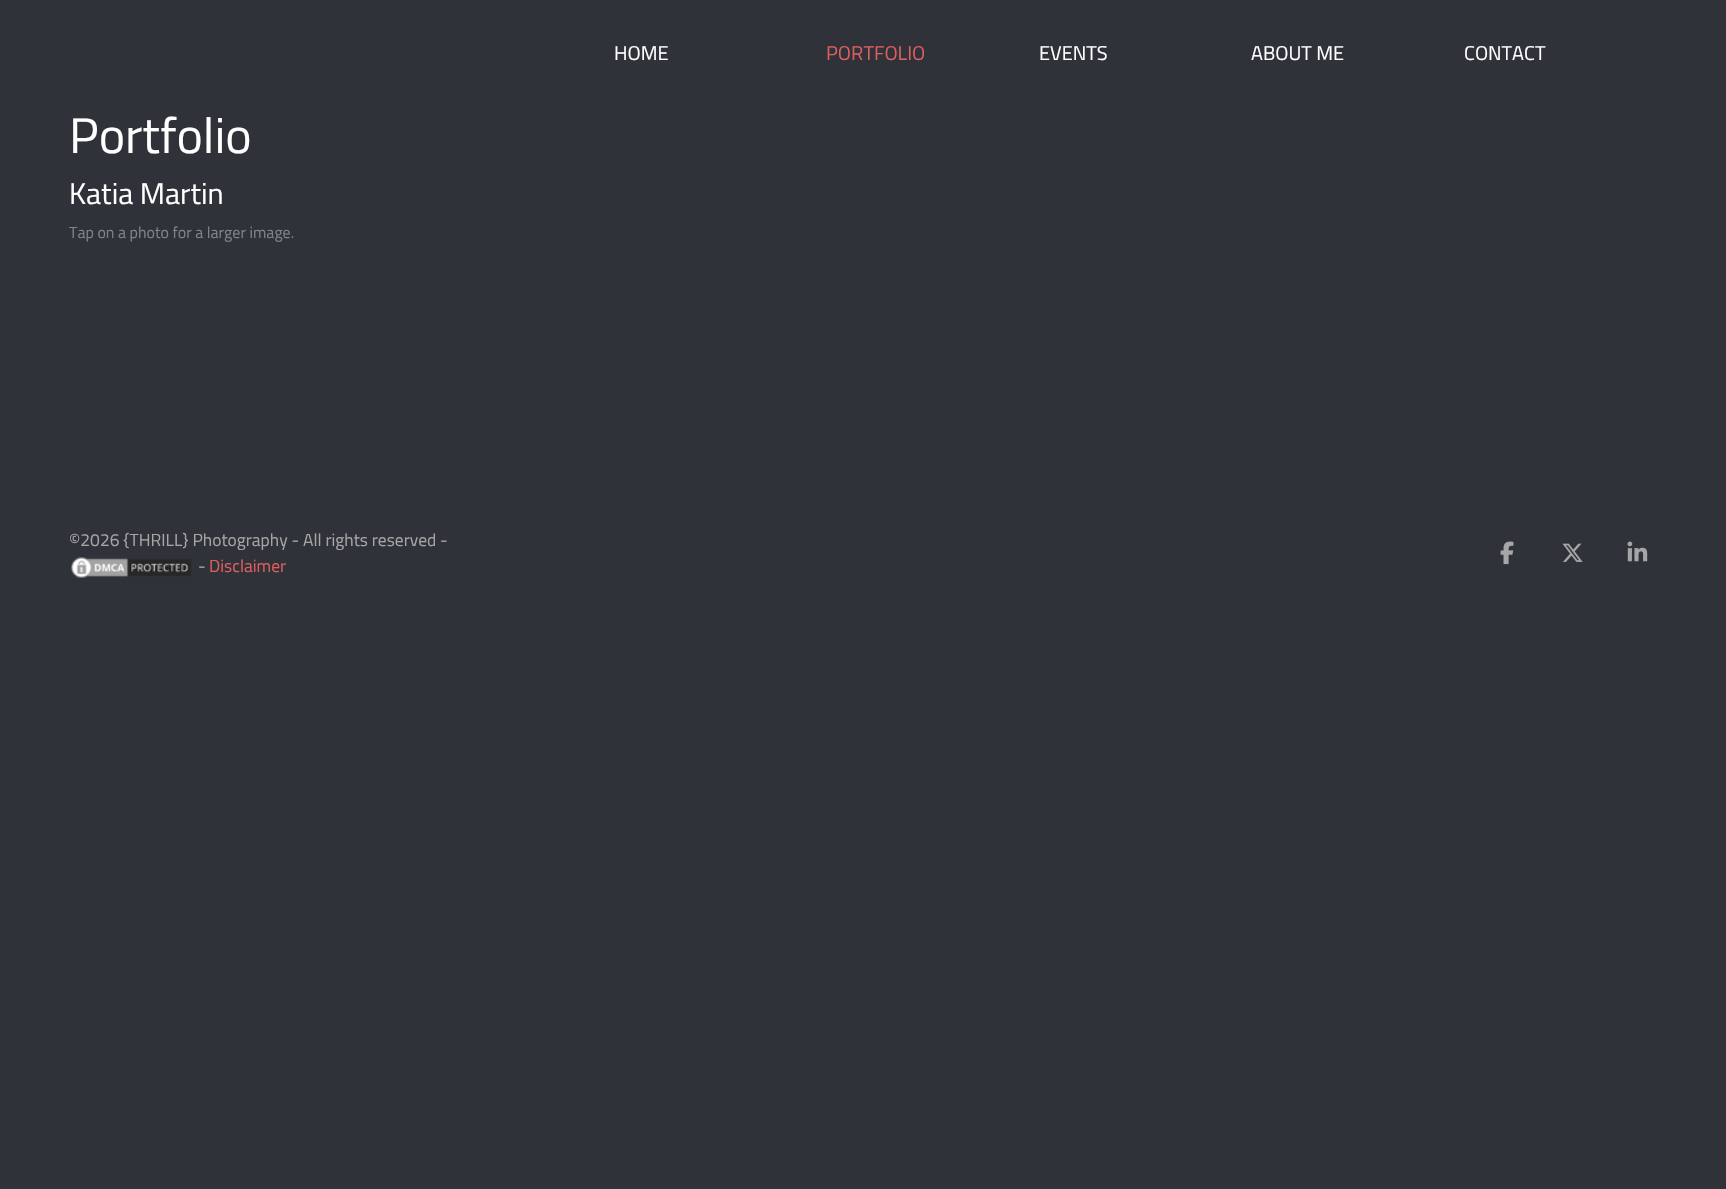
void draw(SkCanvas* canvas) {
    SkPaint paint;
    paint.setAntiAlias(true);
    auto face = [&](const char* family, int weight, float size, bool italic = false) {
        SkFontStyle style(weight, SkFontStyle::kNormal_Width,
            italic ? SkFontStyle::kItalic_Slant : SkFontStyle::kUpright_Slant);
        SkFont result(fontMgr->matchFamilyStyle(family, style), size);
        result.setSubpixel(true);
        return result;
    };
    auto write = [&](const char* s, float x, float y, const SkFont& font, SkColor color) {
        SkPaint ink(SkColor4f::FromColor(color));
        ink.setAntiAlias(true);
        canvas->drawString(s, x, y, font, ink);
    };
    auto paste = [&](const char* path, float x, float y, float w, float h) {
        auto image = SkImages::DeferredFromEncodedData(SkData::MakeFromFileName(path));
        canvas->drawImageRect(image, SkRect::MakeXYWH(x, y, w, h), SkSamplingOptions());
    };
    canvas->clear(SkColorSetRGB(47, 50, 56));
    auto kFont1 = face("Titillium Web", 400, 20);
    write("HOME", 614, 60, kFont1, SK_ColorWHITE);
    write("PORTFOLIO", 826, 60, kFont1, SkColorSetRGB(222, 94, 96));
    write("EVENTS", 1039, 60, kFont1, SK_ColorWHITE);
    write("ABOUT ME", 1251, 60, kFont1, SK_ColorWHITE);
    write("CONTACT", 1464, 60, kFont1, SK_ColorWHITE);
    auto kFont2 = face("Titillium Web", 400, 50);
    write("Portfolio", 69, 153, kFont2, SK_ColorWHITE);
    auto kFont3 = face("Titillium Web", 400, 30);
    write("Katia Martin", 69, 204, kFont3, SK_ColorWHITE);
    auto kFont4 = face("Titillium Web", 400, 16);
    write("Tap on a photo for a larger image.", 69, 238, kFont4, SkColorSetRGB(127, 130, 137));
    auto kFont5 = face("Titillium Web", 400, 17.5f);
    write("©2026 {THRILL} Photography - All rights reserved -", 69, 546, kFont5, SkColorSetRGB(166, 166, 166));
    paste("pic1.png", 71, 557, 121, 21);
    write("-", 198, 572, kFont5, SkColorSetRGB(166, 166, 166));
    write("Disclaimer", 209, 572, kFont5, SkColorSetRGB(222, 94, 96));
    paste("pic2.png", 1500, 541, 14, 24);
    paste("pic3.png", 1562, 543, 21, 19);
    paste("pic4.png", 1627, 541, 21, 21);
}
